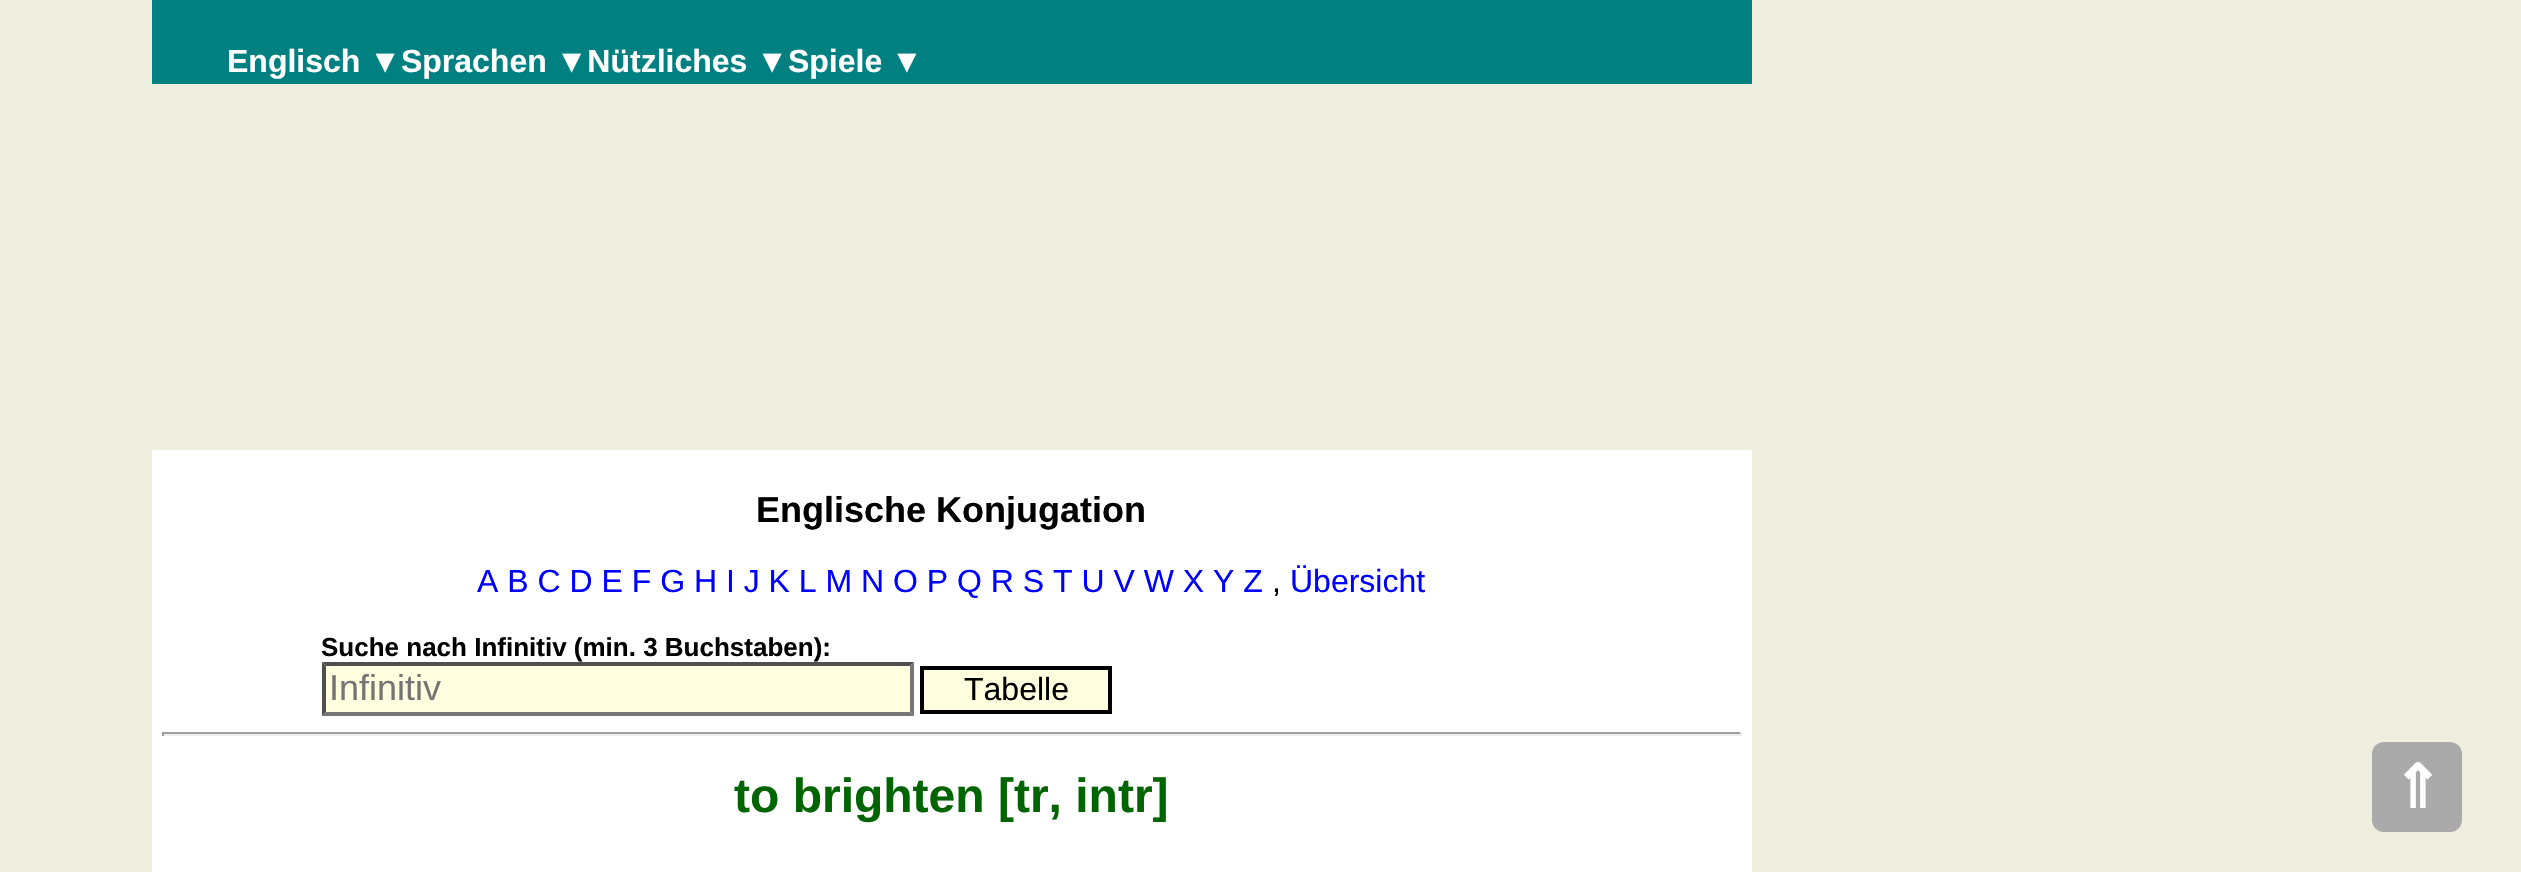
void draw(SkCanvas* canvas) {
    SkPaint paint;
    paint.setAntiAlias(true);
    auto face = [&](const char* family, int weight, float size, bool italic = false) {
        SkFontStyle style(weight, SkFontStyle::kNormal_Width,
            italic ? SkFontStyle::kItalic_Slant : SkFontStyle::kUpright_Slant);
        SkFont result(fontMgr->matchFamilyStyle(family, style), size);
        result.setSubpixel(true);
        return result;
    };
    auto write = [&](const char* s, float x, float y, const SkFont& font, SkColor color) {
        SkPaint ink(SkColor4f::FromColor(color));
        ink.setAntiAlias(true);
        canvas->drawString(s, x, y, font, ink);
    };
    auto block = [&](float x, float y, float w, float h, SkColor color) {
        SkPaint ink(SkColor4f::FromColor(color));
        ink.setAntiAlias(true);
        canvas->drawRect(SkRect::MakeXYWH(x, y, w, h), ink);
    };
    auto card = [&](float x, float y, float w, float h, float radius, SkColor color) {
        SkPaint ink(SkColor4f::FromColor(color));
        ink.setAntiAlias(true);
        canvas->drawRoundRect(SkRect::MakeXYWH(x, y, w, h), radius, radius, ink);
    };
    canvas->clear(SkColorSetRGB(238, 238, 223));
    block(152, 0, 1600, 84, SkColorSetRGB(0, 128, 128));
    auto kFont1 = face("Liberation Sans", 700, 32);
    write("Englisch ▼Sprachen ▼Nützliches ▼Spiele ▼", 227, 72, kFont1, SK_ColorWHITE);
    block(152, 450, 1600, 422, SK_ColorWHITE);
    auto kFont2 = face("Liberation Sans", 700, 36);
    write("Englische Konjugation", 756, 522, kFont2, SK_ColorBLACK);
    auto kFont3 = face("Liberation Sans", 400, 32);
    write("A B C D E F G H I J K L M N O P Q R S T U V W X Y Z", 477, 592, kFont3, SkColorSetRGB(0, 0, 255));
    write(",", 1272, 592, kFont3, SK_ColorBLACK);
    write("Übersicht", 1290, 592, kFont3, SkColorSetRGB(0, 0, 255));
    auto kFont4 = face("Liberation Sans", 700, 26);
    write("Suche nach Infinitiv (min. 3 Buchstaben):", 321, 656, kFont4, SK_ColorBLACK);
    block(322, 662, 592, 54, SkColorSetRGB(255, 255, 224));
    paint.setColor(SkColorSetRGB(79, 79, 79));
    canvas->drawPath(SkPathBuilder().moveTo(322, 662).lineTo(914, 662).lineTo(910, 666).lineTo(326, 666).close().detach(), paint);
    paint.setColor(SkColorSetRGB(118, 118, 118));
    canvas->drawPath(SkPathBuilder().moveTo(914, 662).lineTo(914, 716).lineTo(910, 712).lineTo(910, 666).close().detach(), paint);
    canvas->drawPath(SkPathBuilder().moveTo(914, 716).lineTo(322, 716).lineTo(326, 712).lineTo(910, 712).close().detach(), paint);
    paint.setColor(SkColorSetRGB(79, 79, 79));
    canvas->drawPath(SkPathBuilder().moveTo(322, 716).lineTo(322, 662).lineTo(326, 666).lineTo(326, 712).close().detach(), paint);
    auto kFont5 = face("Liberation Sans", 400, 36);
    write("Infinitiv", 329, 700, kFont5, SkColorSetRGB(117, 117, 117));
    paint.setColor(SkColorSetRGB(255, 255, 224));
    canvas->drawRect(SkRect::MakeXYWH(922, 668, 188, 44), paint);
    paint.setStyle(SkPaint::kStroke_Style);
    paint.setStrokeWidth(4);
    paint.setColor(SK_ColorBLACK);
    canvas->drawRect(SkRect::MakeXYWH(922, 668, 188, 44), paint);
    write("Tabelle", 964, 700, kFont3, SK_ColorBLACK);
    block(162, 732, 1580, 2, SkColorSetRGB(159, 159, 159));
    block(1740, 732, 2, 4, SkColorSetRGB(238, 238, 238));
    block(162, 734, 1580, 2, SkColorSetRGB(238, 238, 238));
    block(162, 732, 2, 4, SkColorSetRGB(159, 159, 159));
    auto kFont6 = face("Liberation Sans", 700, 48);
    write("to brighten [tr, intr]", 734, 812, kFont6, SkColorSetRGB(0, 100, 0));
    card(2372, 742, 90, 90, 12, SkColorSetRGB(170, 170, 170));
    auto kFont7 = face("DejaVu Sans", 700, 60);
    write("⇑", 2392, 808, kFont7, SK_ColorWHITE);
}
